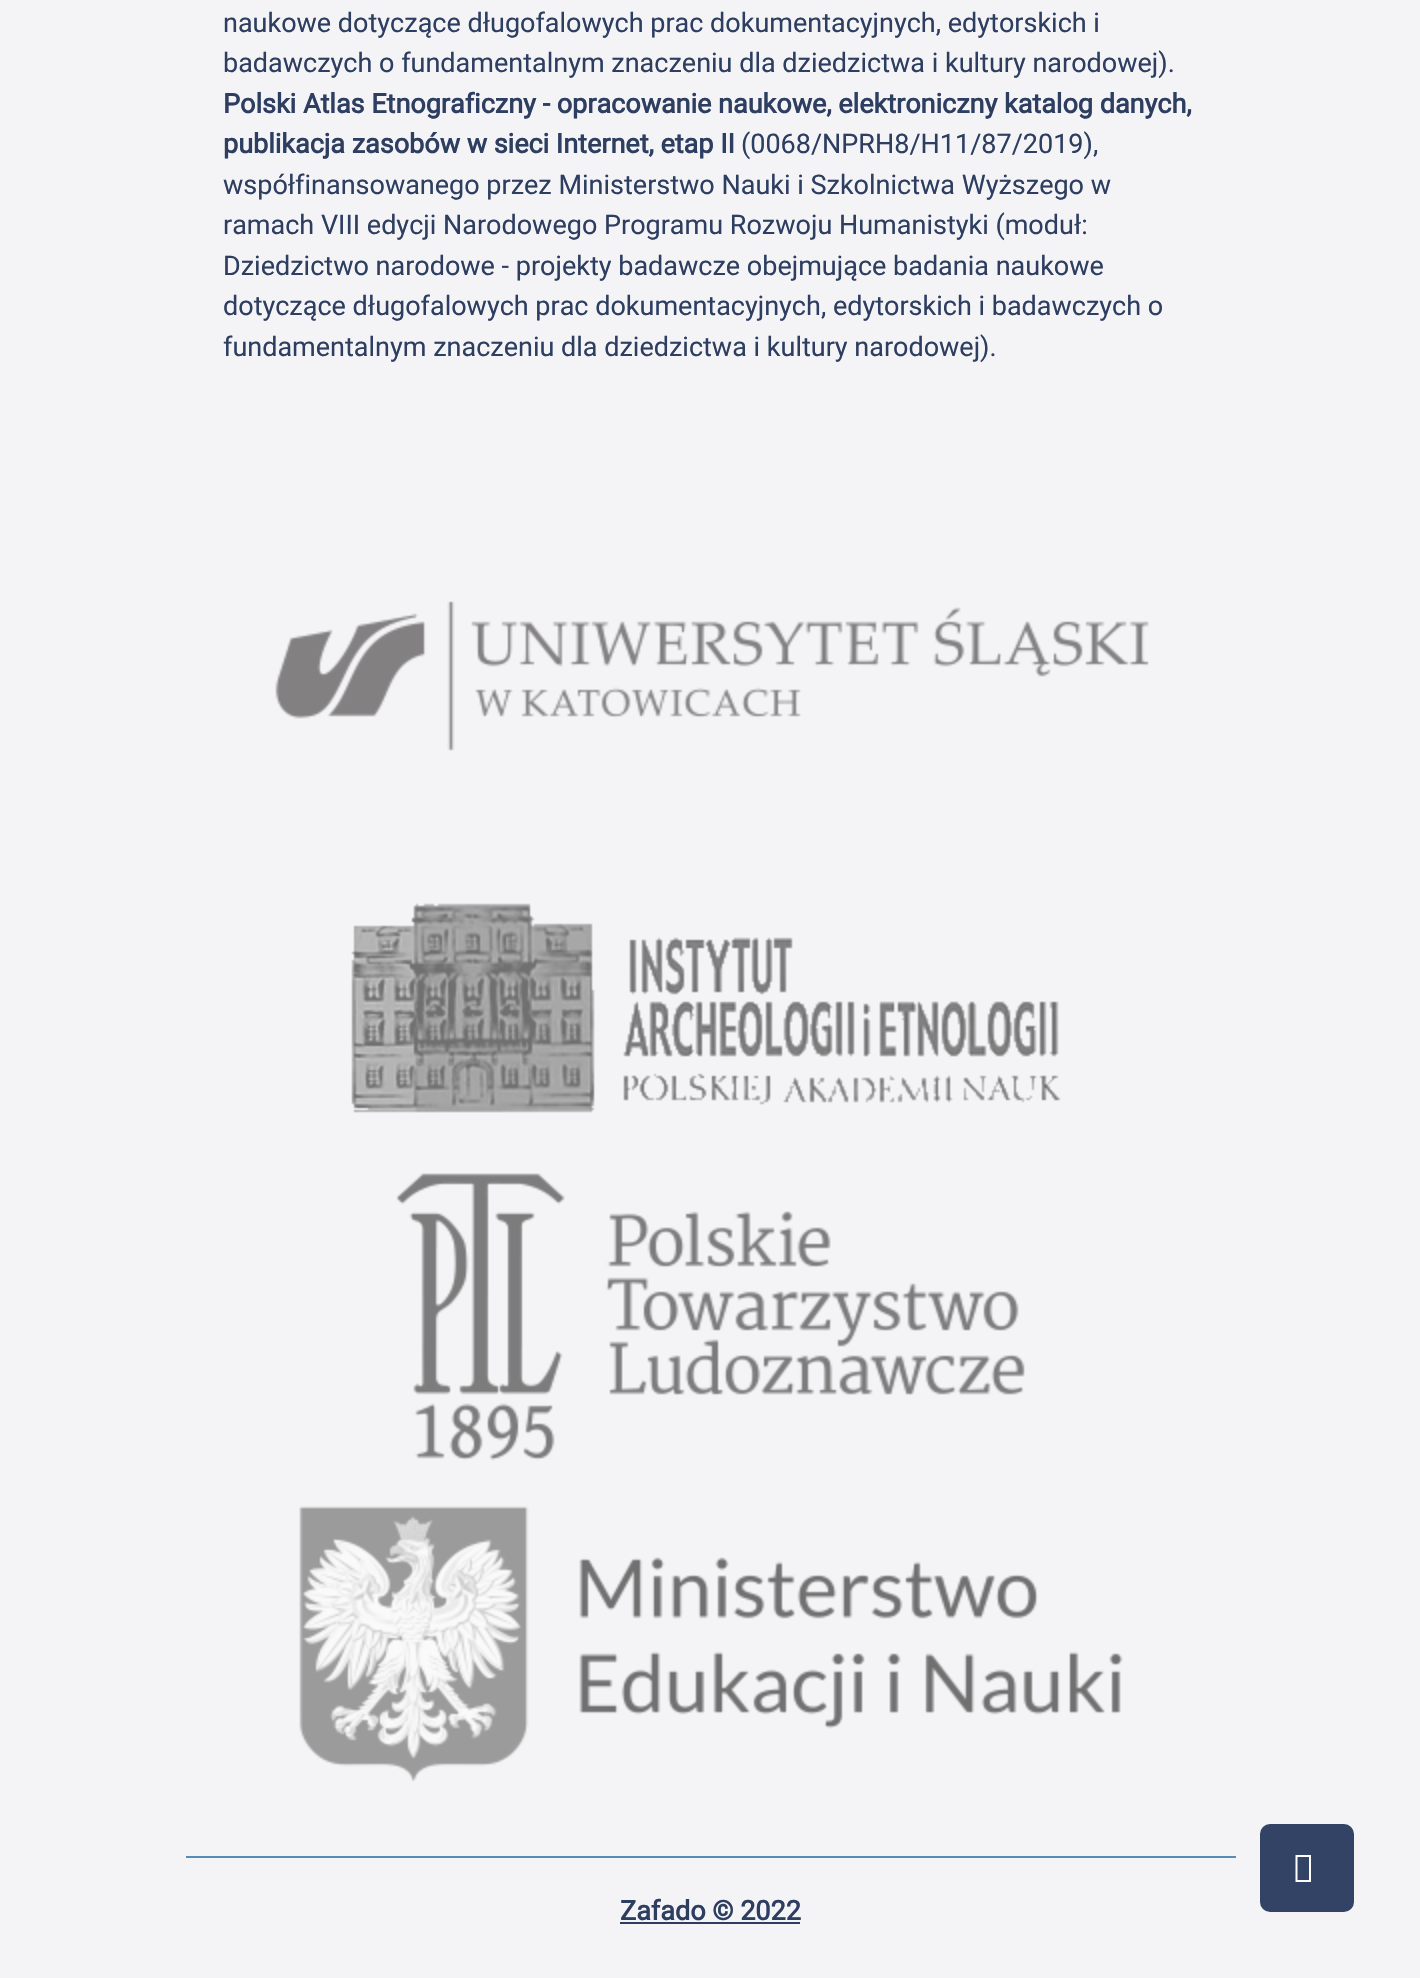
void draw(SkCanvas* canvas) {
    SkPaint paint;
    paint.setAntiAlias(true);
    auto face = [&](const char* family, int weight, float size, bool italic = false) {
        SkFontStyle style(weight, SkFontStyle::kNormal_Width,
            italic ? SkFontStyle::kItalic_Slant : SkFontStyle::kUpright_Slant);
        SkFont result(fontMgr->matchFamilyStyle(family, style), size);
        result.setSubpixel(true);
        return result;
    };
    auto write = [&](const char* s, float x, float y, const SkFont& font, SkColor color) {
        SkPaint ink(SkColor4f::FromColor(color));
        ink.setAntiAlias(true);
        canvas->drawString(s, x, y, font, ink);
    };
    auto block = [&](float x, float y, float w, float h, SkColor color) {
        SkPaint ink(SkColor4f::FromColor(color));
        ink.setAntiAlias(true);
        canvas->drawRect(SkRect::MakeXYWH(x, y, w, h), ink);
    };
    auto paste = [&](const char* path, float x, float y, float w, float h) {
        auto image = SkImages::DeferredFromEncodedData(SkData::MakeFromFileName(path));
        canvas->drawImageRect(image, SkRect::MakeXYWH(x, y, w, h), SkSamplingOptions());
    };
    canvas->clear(SkColorSetRGB(244, 244, 246));
    auto kFont1 = face("Roboto", 400, 27);
    write("naukowe dotyczące długofalowych prac dokumentacyjnych, edytorskich i", 223, 32, kFont1, SkColorSetRGB(45, 62, 97));
    write("badawczych o fundamentalnym znaczeniu dla dziedzictwa i kultury narodowej).", 223, 72, kFont1, SkColorSetRGB(45, 62, 97));
    auto kFont2 = face("Roboto", 700, 27);
    write("Polski Atlas Etnograficzny - opracowanie naukowe, elektroniczny katalog danych,", 223, 113, kFont2, SkColorSetRGB(45, 62, 97));
    write("publikacja zasobów w sieci Internet, etap II", 223, 153, kFont2, SkColorSetRGB(45, 62, 97));
    write("(0068/NPRH8/H11/87/2019),", 741, 153, kFont1, SkColorSetRGB(45, 62, 97));
    write("współfinansowanego przez Ministerstwo Nauki i Szkolnictwa Wyższego w", 223, 194, kFont1, SkColorSetRGB(45, 62, 97));
    write("ramach VIII edycji Narodowego Programu Rozwoju Humanistyki (moduł:", 223, 234, kFont1, SkColorSetRGB(45, 62, 97));
    write("Dziedzictwo narodowe - projekty badawcze obejmujące badania naukowe", 223, 275, kFont1, SkColorSetRGB(45, 62, 97));
    write("dotyczące długofalowych prac dokumentacyjnych, edytorskich i badawczych o", 223, 315, kFont1, SkColorSetRGB(45, 62, 97));
    write("fundamentalnym znaczeniu dla dziedzictwa i kultury narodowej).", 223, 356, kFont1, SkColorSetRGB(45, 62, 97));
    paste("pic1.png", 275, 601, 874, 150);
    paste("pic2.png", 351, 903, 710, 210);
    paste("pic3.png", 396, 1173, 629, 288);
    paste("pic4.png", 299, 1506, 824, 276);
    block(186, 1856, 1050, 2, SkColorSetRGB(87, 140, 181));
    write("Zafado © 2022", 620, 1920, kFont2, SkColorSetRGB(45, 62, 97));
    block(620, 1922, 180, 2, SkColorSetRGB(45, 62, 97));
    paint.setColor(SkColorSetRGB(50, 67, 101));
    canvas->drawRoundRect(SkRect::MakeXYWH(1261, 1825, 92, 86), 9, 9, paint);
    paint.setStyle(SkPaint::kStroke_Style);
    paint.setStrokeWidth(2);
    canvas->drawRoundRect(SkRect::MakeXYWH(1261, 1825, 92, 86), 9, 9, paint);
    paint.setStyle(SkPaint::kFill_Style);
    paint.setColor(SK_ColorWHITE);
    canvas->drawPath(SkPathBuilder().moveTo(1295.5f, 1882).lineTo(1295.5f, 1855).lineTo(1311, 1855).lineTo(1311, 1882).close().moveTo(1297.5f, 1880).lineTo(1309, 1880).lineTo(1309, 1857).lineTo(1297.5f, 1857).close().detach(), paint);
}
